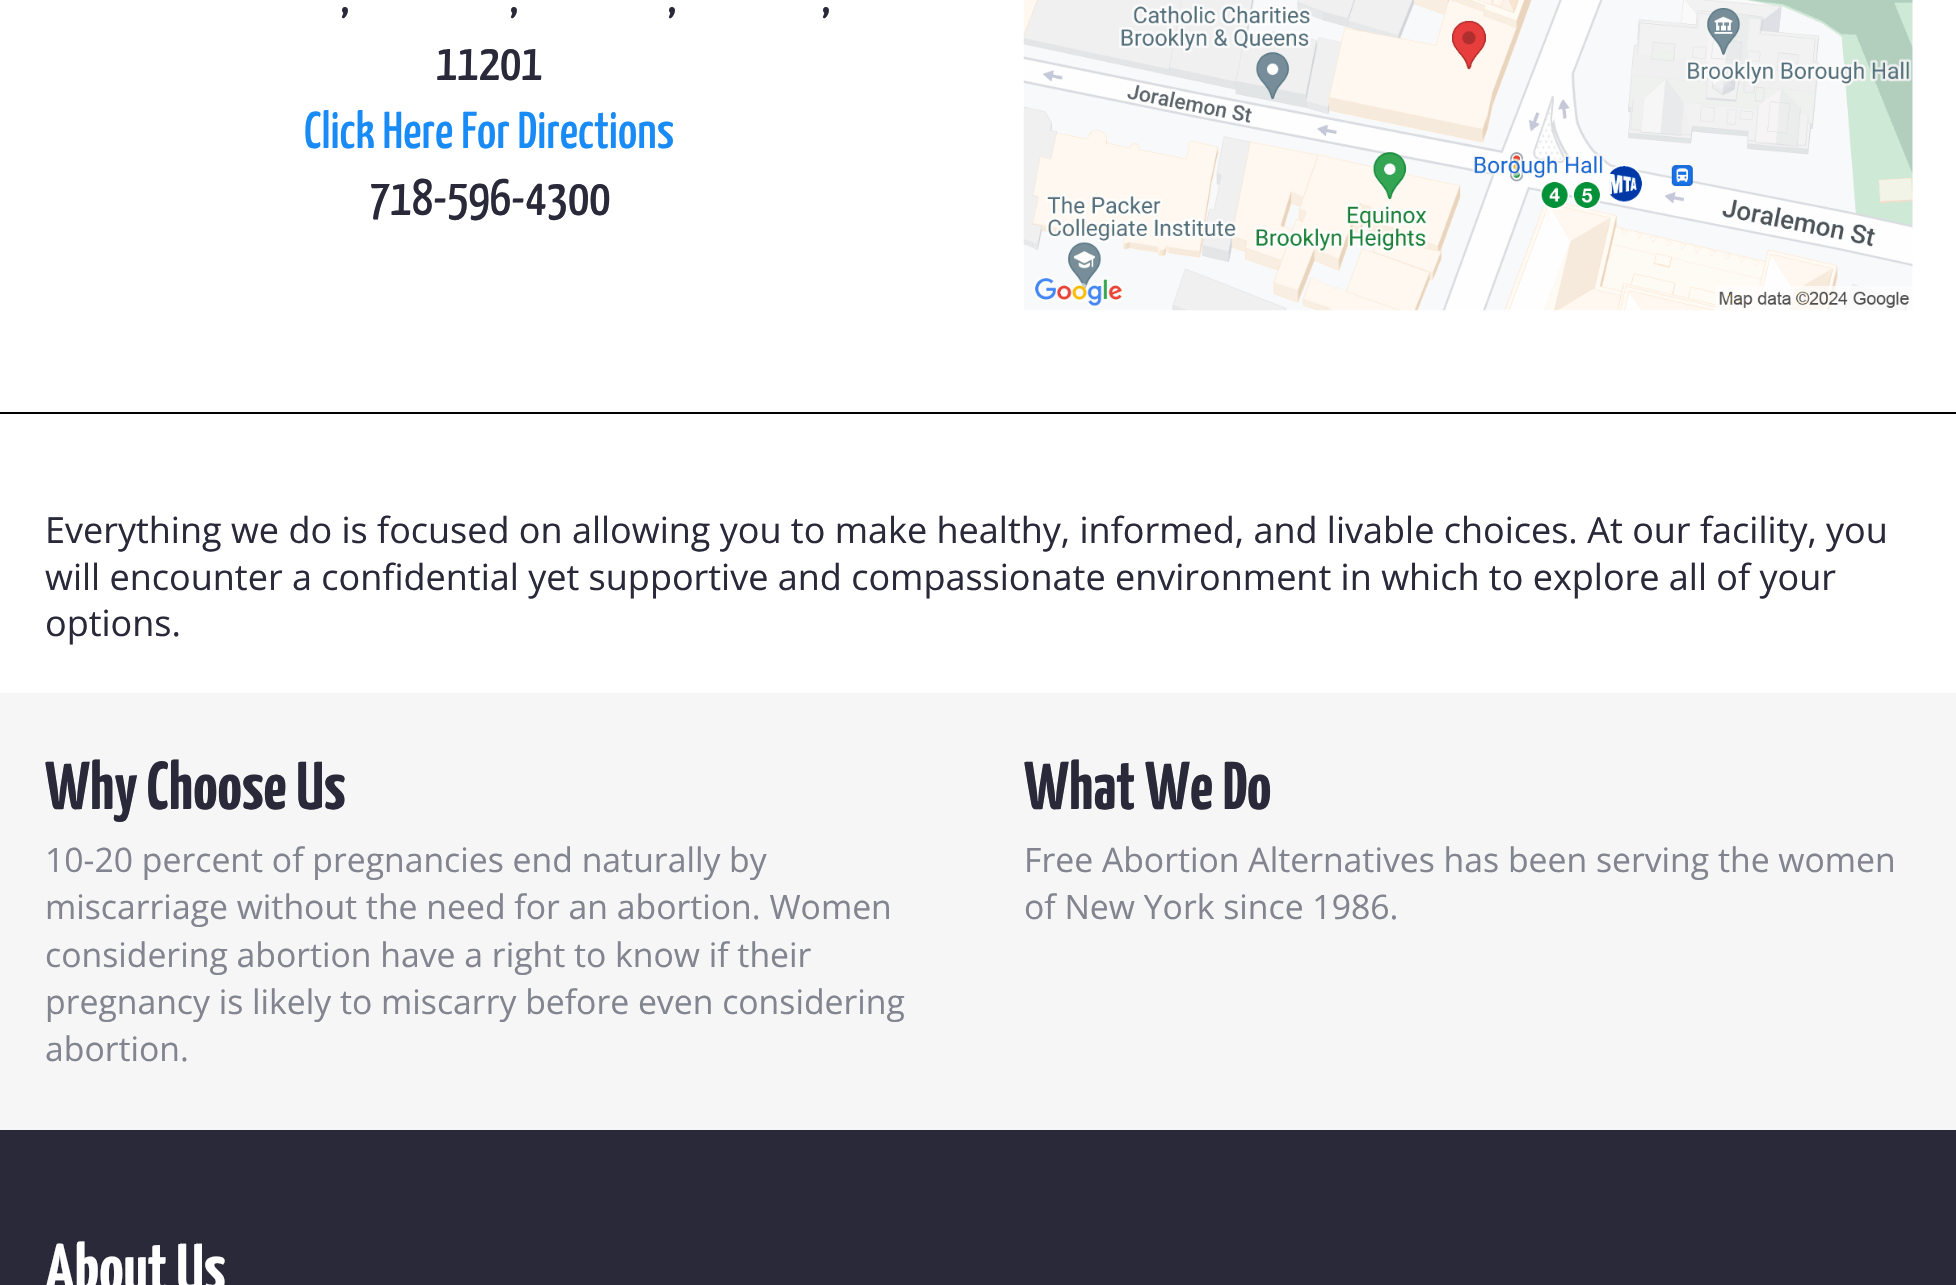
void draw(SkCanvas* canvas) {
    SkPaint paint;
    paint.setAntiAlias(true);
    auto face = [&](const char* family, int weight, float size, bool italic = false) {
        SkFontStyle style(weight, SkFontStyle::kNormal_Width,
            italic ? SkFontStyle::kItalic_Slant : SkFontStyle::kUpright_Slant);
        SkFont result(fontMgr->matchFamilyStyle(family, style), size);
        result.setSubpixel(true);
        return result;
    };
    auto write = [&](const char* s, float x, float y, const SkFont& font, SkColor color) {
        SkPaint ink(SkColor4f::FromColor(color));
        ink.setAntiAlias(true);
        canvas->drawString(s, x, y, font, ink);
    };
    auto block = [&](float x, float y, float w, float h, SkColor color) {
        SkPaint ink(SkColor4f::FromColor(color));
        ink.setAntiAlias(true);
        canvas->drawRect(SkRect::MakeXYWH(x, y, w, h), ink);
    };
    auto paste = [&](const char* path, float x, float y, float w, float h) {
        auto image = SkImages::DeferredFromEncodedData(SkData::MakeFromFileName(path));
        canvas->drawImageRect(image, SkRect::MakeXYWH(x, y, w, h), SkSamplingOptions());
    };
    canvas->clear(SK_ColorWHITE);
    block(0, 412, 1956, 2, SK_ColorBLACK);
    auto kFont1 = face("Yanone Kaffeesatz", 500, 51.75f);
    write(",", 340, 13, kFont1, SkColorSetRGB(41, 41, 58));
    write(",", 509, 13, kFont1, SkColorSetRGB(41, 41, 58));
    write(",", 667, 13, kFont1, SkColorSetRGB(41, 41, 58));
    write(",", 821, 13, kFont1, SkColorSetRGB(41, 41, 58));
    write("11201", 436, 80, kFont1, SkColorSetRGB(41, 41, 58));
    write("Click Here For Directions", 304, 148, kFont1, SkColorSetRGB(24, 139, 246));
    write("718-596-4300", 369, 215, kFont1, SkColorSetRGB(41, 41, 58));
    paste("pic1.png", 1023, 0, 890, 311);
    auto kFont2 = face("Open Sans", 400, 36);
    write("Everything we do is focused on allowing you to make healthy, informed, and livable choices. At our facility, you", 45, 543, kFont2, SkColorSetRGB(41, 41, 58));
    write("will encounter a confidential yet supportive and compassionate environment in which to explore all of your", 45, 590, kFont2, SkColorSetRGB(41, 41, 58));
    write("options.", 45, 636, kFont2, SkColorSetRGB(41, 41, 58));
    block(0, 693, 1956, 437, SkColorSetRGB(246, 246, 246));
    auto kFont3 = face("Yanone Kaffeesatz", 700, 67.5f);
    write("Why Choose Us", 45, 809, kFont3, SkColorSetRGB(41, 41, 58));
    auto kFont4 = face("Open Sans", 400, 33.75f);
    write("10-20 percent of pregnancies end naturally by", 45, 872, kFont4, SkColorSetRGB(130, 133, 144));
    write("miscarriage without the need for an abortion. Women", 45, 919, kFont4, SkColorSetRGB(130, 133, 144));
    write("considering abortion have a right to know if their", 45, 967, kFont4, SkColorSetRGB(130, 133, 144));
    write("pregnancy is likely to miscarry before even considering", 45, 1014, kFont4, SkColorSetRGB(130, 133, 144));
    write("abortion.", 45, 1061, kFont4, SkColorSetRGB(130, 133, 144));
    write("What We Do", 1024, 809, kFont3, SkColorSetRGB(41, 41, 58));
    write("Free Abortion Alternatives has been serving the women", 1024, 872, kFont4, SkColorSetRGB(130, 133, 144));
    write("of New York since 1986.", 1024, 919, kFont4, SkColorSetRGB(130, 133, 144));
    block(0, 1130, 1956, 155, SkColorSetRGB(41, 41, 58));
    write("About Us", 45, 1291, kFont3, SK_ColorWHITE);
}
